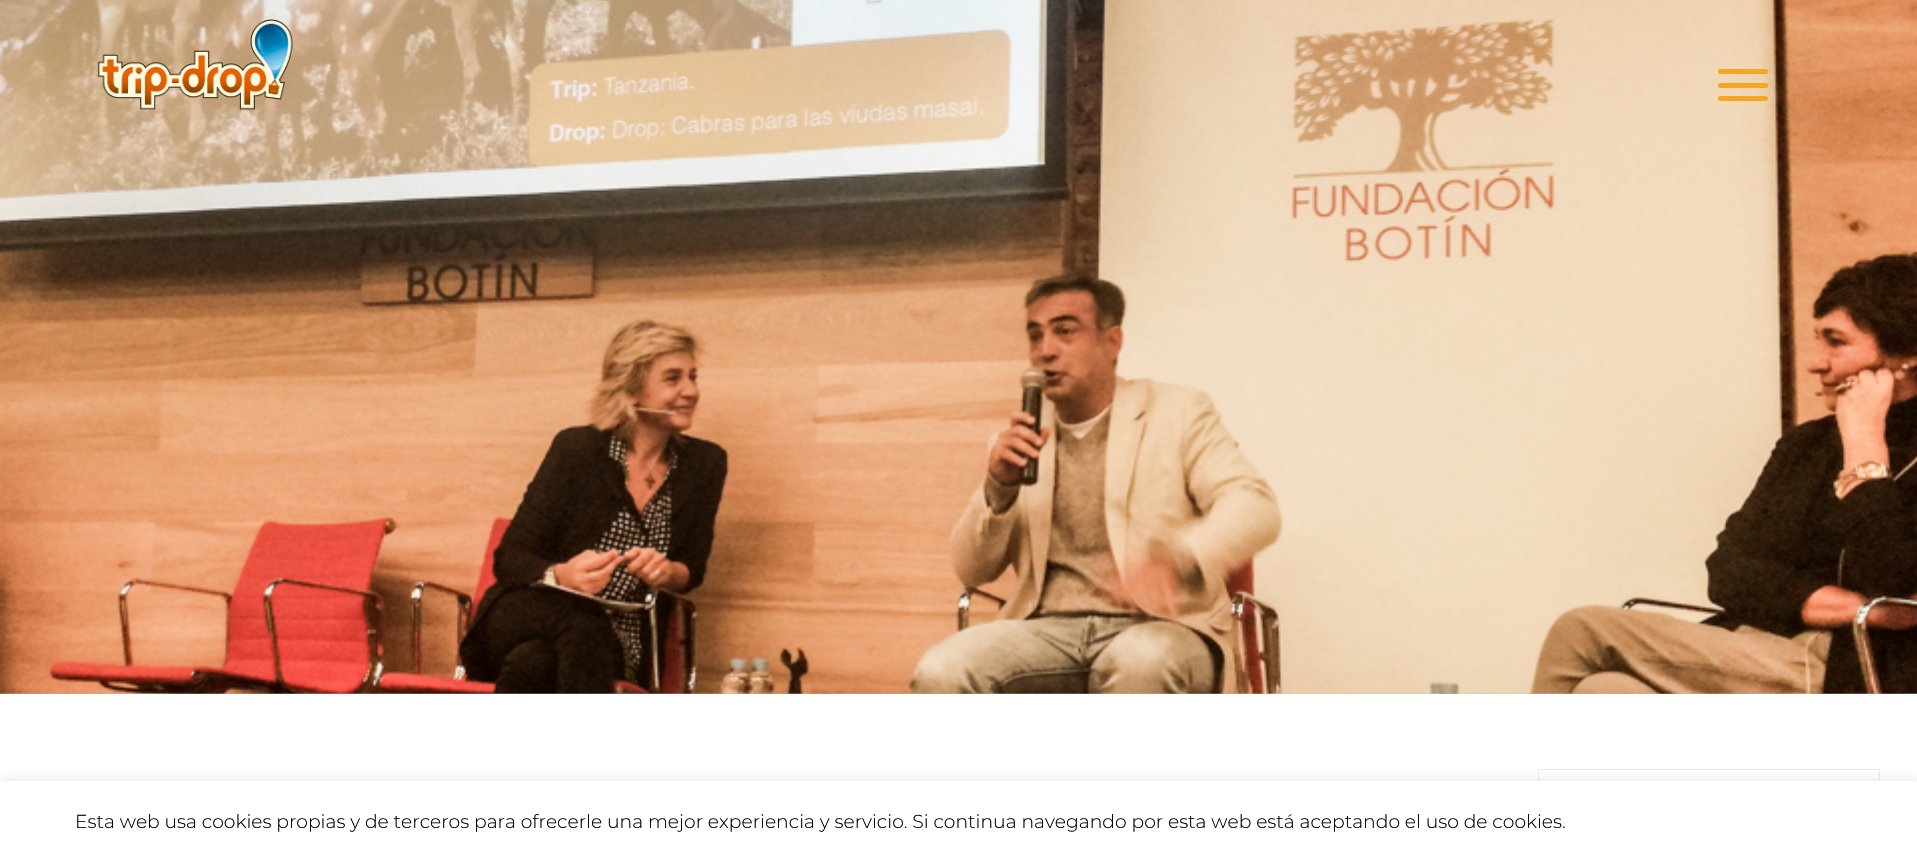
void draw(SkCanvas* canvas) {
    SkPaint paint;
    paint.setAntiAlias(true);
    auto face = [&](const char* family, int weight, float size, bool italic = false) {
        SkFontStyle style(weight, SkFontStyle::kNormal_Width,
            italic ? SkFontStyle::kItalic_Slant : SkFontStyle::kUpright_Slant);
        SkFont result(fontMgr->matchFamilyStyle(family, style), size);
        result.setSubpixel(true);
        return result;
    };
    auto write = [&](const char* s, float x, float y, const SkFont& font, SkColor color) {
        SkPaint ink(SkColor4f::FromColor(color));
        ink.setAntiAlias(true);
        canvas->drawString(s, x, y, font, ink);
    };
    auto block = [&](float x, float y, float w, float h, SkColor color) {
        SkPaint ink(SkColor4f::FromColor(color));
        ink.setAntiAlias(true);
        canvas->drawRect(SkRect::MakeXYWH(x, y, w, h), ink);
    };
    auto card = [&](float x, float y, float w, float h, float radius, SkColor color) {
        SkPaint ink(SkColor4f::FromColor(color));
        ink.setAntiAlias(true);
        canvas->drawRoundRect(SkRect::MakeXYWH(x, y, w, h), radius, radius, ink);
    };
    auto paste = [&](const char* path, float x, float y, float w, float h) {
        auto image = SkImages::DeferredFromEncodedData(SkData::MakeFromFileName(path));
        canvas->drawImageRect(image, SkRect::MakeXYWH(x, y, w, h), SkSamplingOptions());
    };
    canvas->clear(SK_ColorWHITE);
    paste("pic1.png", 0, 0, 1917, 694);
    block(0, 693, 1917, 1, SkColorSetARGB(18, 0, 0, 0));
    paint.setStyle(SkPaint::kStroke_Style);
    paint.setStrokeWidth(1);
    paint.setColor(SkColorSetRGB(236, 236, 236));
    canvas->drawRect(SkRect::MakeXYWH(1538.5f, 769.5f, 341, 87), paint);
    paste("pic2.png", 97, 19, 196, 91);
    card(1718, 83, 50, 5, 2.5f, SkColorSetRGB(245, 166, 35));
    card(1718, 69, 50, 5, 2.5f, SkColorSetRGB(245, 166, 35));
    card(1718, 96, 50, 5, 2.5f, SkColorSetRGB(245, 166, 35));
    paint.setStyle(SkPaint::kFill_Style);
    paint.setColor(SkColorSetARGB(77, 172, 171, 171));
    paint.setMaskFilter(SkMaskFilter::MakeBlur(kNormal_SkBlurStyle, 6));
    canvas->drawRect(SkRect::MakeXYWH(0, 780, 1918, 75), paint);
    paint.setMaskFilter(nullptr);
    block(0, 781, 1917, 75, SK_ColorWHITE);
    auto kFont1 = face("Montserrat", 300, 18.75f);
    write("Esta web usa cookies propias y de terceros para ofrecerle una mejor experiencia y servicio. Si continua navegando por esta web está aceptando el uso de cookies.", 75, 828, kFont1, SK_ColorBLACK);
}
